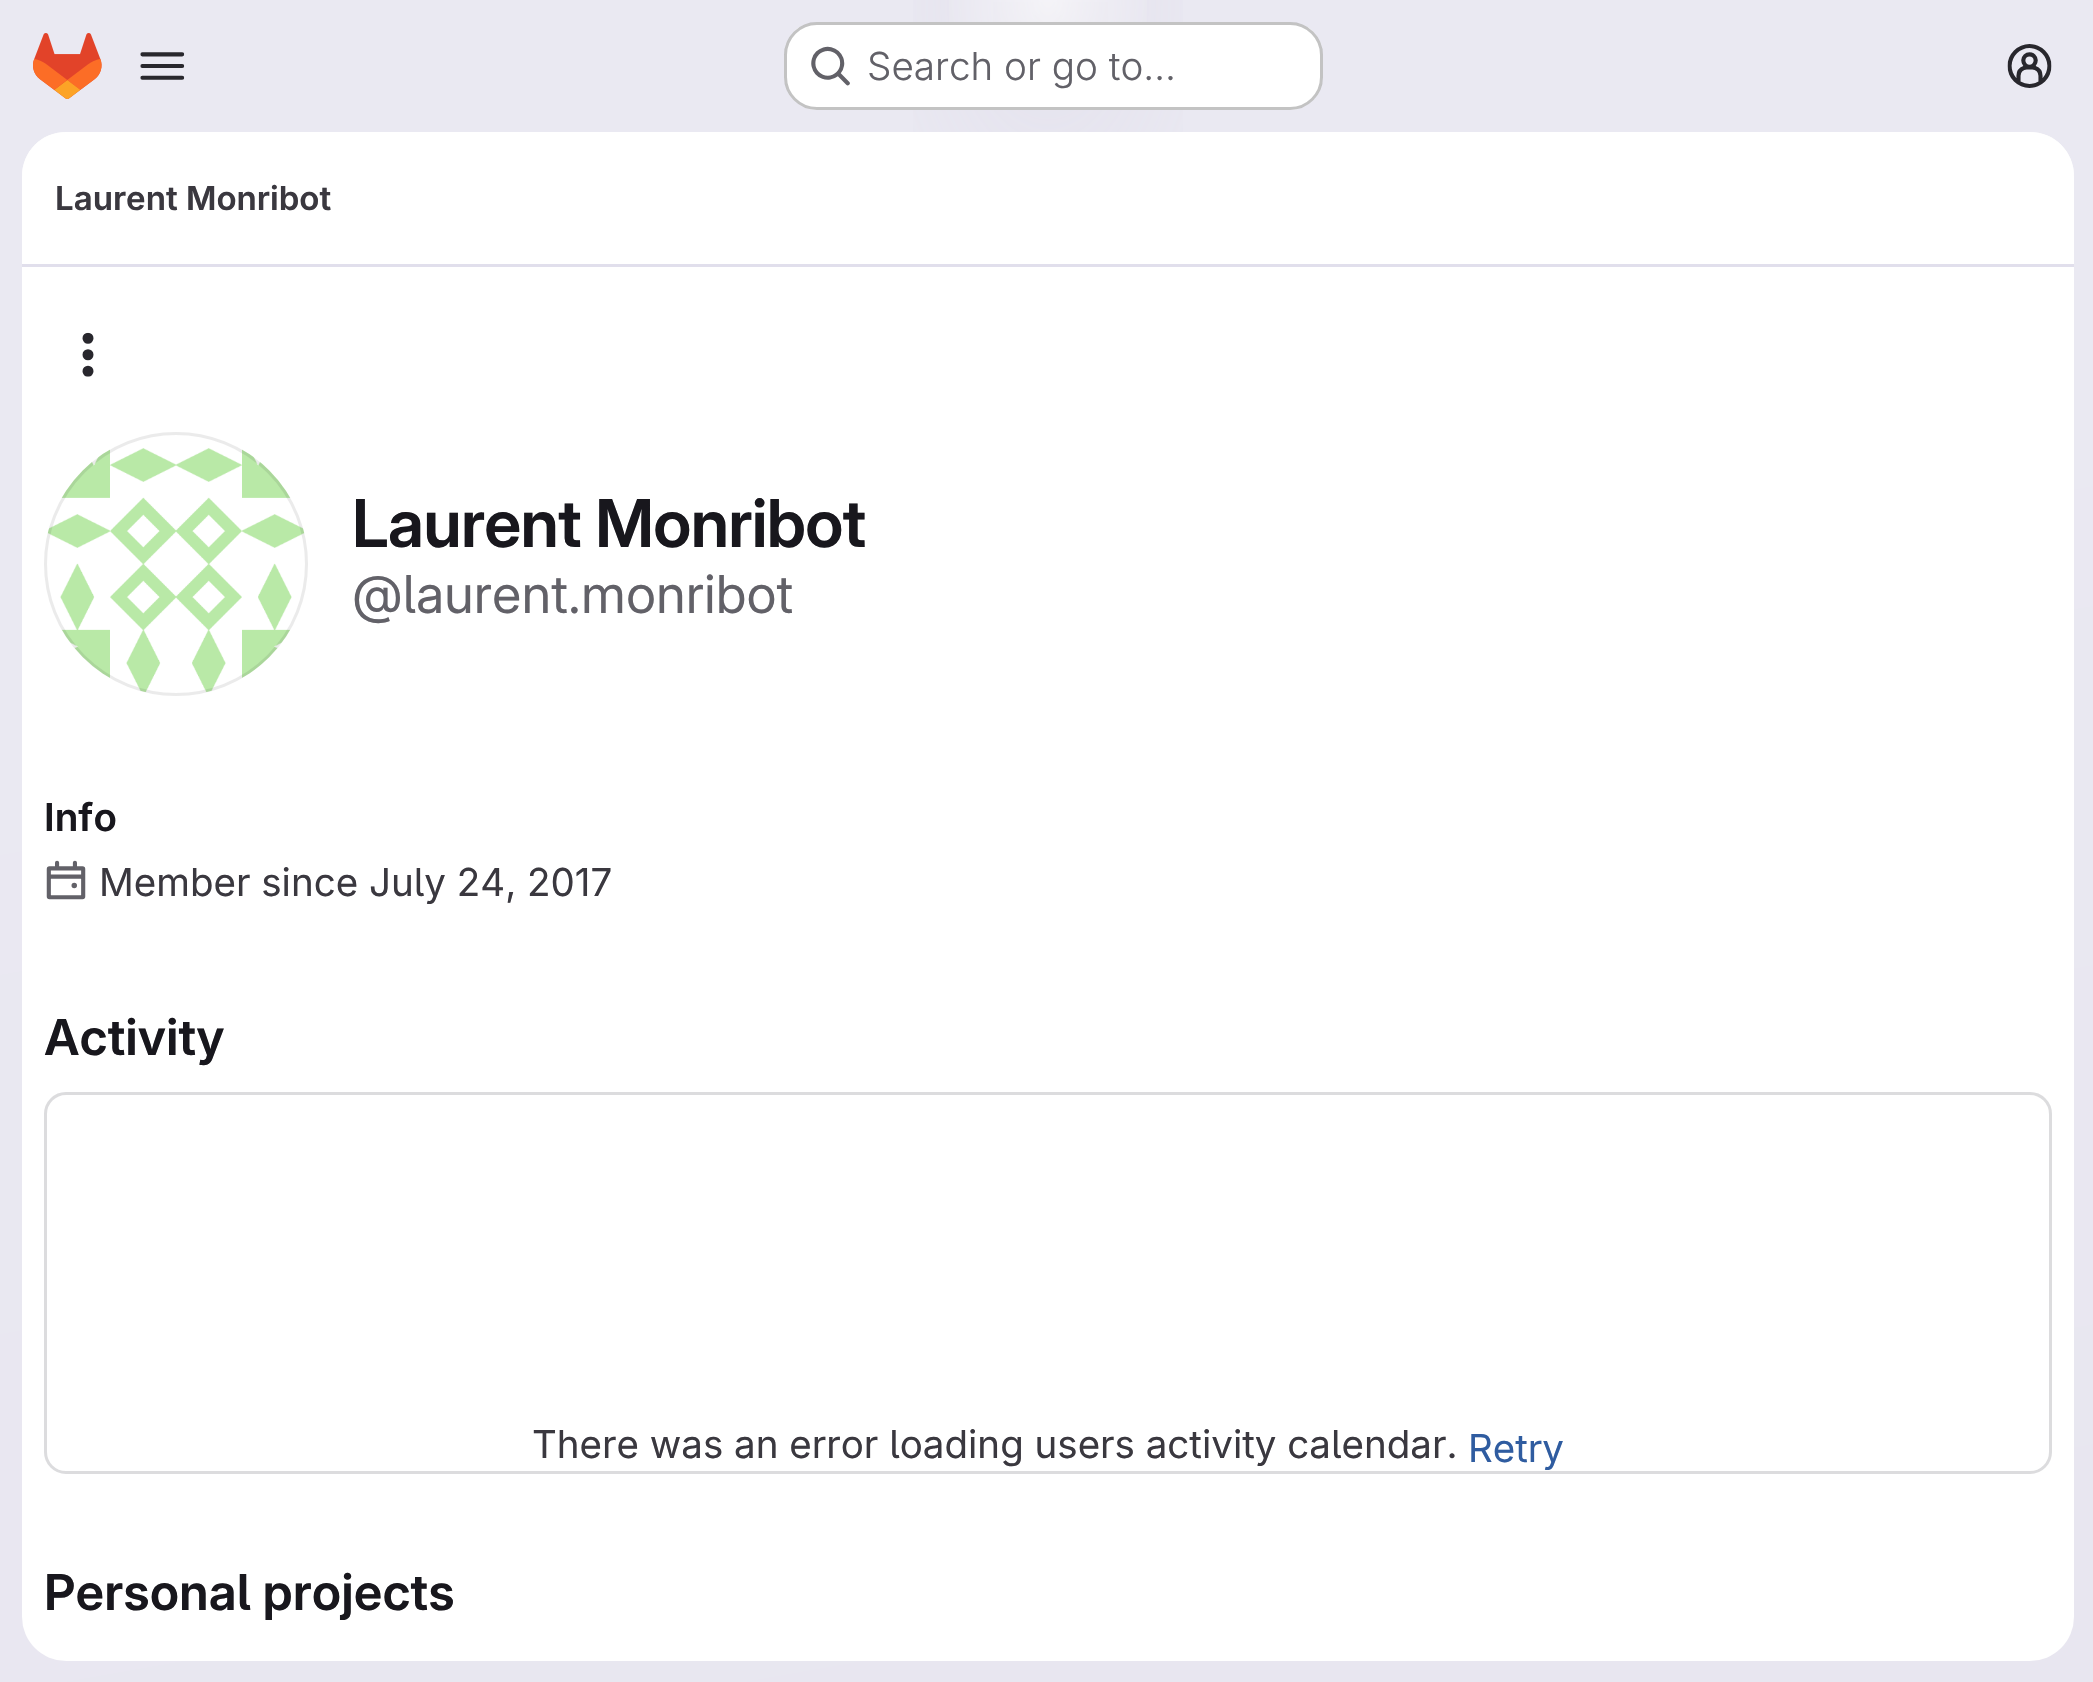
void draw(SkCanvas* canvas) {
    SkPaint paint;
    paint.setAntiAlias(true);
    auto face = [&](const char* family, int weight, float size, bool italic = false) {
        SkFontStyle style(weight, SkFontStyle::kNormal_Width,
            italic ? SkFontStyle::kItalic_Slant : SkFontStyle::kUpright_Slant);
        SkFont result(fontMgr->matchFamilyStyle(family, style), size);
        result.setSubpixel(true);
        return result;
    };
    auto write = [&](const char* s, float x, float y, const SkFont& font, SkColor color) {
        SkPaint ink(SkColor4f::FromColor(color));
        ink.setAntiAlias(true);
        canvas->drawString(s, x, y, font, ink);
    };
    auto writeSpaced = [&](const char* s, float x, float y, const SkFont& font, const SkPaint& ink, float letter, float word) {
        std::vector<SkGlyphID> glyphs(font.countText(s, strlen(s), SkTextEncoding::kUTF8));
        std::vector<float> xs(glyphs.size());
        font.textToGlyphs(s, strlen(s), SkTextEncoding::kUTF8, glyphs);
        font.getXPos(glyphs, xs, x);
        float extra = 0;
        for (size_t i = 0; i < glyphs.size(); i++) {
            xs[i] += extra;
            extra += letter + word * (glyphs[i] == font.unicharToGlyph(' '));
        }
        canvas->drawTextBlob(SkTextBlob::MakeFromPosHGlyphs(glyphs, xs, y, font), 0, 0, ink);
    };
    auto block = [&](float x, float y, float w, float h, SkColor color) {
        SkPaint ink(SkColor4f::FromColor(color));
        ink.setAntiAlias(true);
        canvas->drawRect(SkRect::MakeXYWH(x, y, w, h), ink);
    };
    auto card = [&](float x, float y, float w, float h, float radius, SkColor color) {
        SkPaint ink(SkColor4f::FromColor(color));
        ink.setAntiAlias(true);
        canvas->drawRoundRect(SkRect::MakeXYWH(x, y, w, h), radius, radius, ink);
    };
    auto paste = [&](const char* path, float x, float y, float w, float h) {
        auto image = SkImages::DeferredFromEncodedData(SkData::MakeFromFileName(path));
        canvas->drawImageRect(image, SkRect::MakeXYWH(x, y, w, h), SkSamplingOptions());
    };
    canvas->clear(SK_ColorWHITE);
    {
        const SkColor colors[] = {SkColorSetRGB(232, 230, 240), SkColorSetRGB(234, 233, 242)};
        const float stops[] = {0, 0.7f};
        const SkPoint ends[] = {{1223, 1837}, {872, -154}};
        paint.setShader(SkGradientShader::MakeLinear(ends, colors, stops, 2, SkTileMode::kClamp));
        paint.setAlpha(255);
    }
    canvas->drawRect(SkRect::MakeXYWH(0, 0, 2093, 1682), paint);
    {
        const SkColor colors[] = {SkColorSetRGB(228, 226, 237), SkColorSetARGB(0, 228, 226, 237)};
        const float stops[] = {0, 0.18f};
        SkMatrix m = SkMatrix::Translate(1048, 0).preScale(1048, 1683);
        paint.setShader(SkGradientShader::MakeRadial({0, 0}, 1, colors, stops, 2, SkTileMode::kClamp, 0, &m));
        paint.setAlpha(255);
    }
    canvas->drawRect(SkRect::MakeXYWH(913, 0, 270, 132), paint);
    {
        const SkColor colors[] = {SkColorSetRGB(228, 226, 236), SkColorSetARGB(0, 228, 226, 236)};
        const float stops[] = {0, 0.13f};
        SkMatrix m = SkMatrix::Translate(1048, 0).preScale(1048, 1683);
        paint.setShader(SkGradientShader::MakeRadial({0, 0}, 1, colors, stops, 2, SkTileMode::kClamp, 0, &m));
        paint.setAlpha(255);
    }
    canvas->drawRect(SkRect::MakeXYWH(993, 2, 115, 100), paint);
    {
        const SkColor colors[] = {SkColorSetARGB(153, 255, 255, 255), SkColorSetARGB(0, 255, 255, 255)};
        const float stops[] = {0, 0.06f};
        paint.setShader(SkGradientShader::MakeRadial({1048, 0}, 1982, colors, stops, 2, SkTileMode::kClamp));
        paint.setAlpha(255);
    }
    canvas->drawRect(SkRect::MakeXYWH(949, 0, 198, 101), paint);
    paste("pic1.png", 33, 33, 69, 66);
    paste("pic2.png", 140, 52, 45, 28);
    card(784, 22, 539, 88, 33, SK_ColorWHITE);
    paint.setStyle(SkPaint::kStroke_Style);
    paint.setStrokeWidth(3);
    paint.setShader(nullptr);
    paint.setColor(SkColorSetARGB(61, 5, 5, 6));
    canvas->drawRoundRect(SkRect::MakeXYWH(785.5f, 23.5f, 536, 85), 31.5f, 31.5f, paint);
    paste("pic3.png", 811, 46, 39, 40);
    auto kFont1 = face("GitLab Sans", 300, 38.5f);
    write("Search or go to…", 867, 80, kFont1, SkColorSetRGB(98, 97, 104));
    paste("pic4.png", 2007, 44, 45, 44);
    card(22, 132, 2052, 1529, 44, SK_ColorWHITE);
    paint.setStyle(SkPaint::kFill_Style);
    paint.setColor(SK_ColorWHITE);
    canvas->drawPath(SkPathBuilder().moveTo(66, 132).lineTo(2030, 132).cubicTo(2054.5f, 132, 2074, 151.5f, 2074, 176).lineTo(2074, 267).lineTo(22, 267).lineTo(22, 176).cubicTo(22, 151.5f, 41.5f, 132, 66, 132).close().detach(), paint);
    block(22, 264, 2052, 3, SkColorSetRGB(225, 223, 236));
    auto kFont2 = face("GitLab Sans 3", 600, 33);
    write("Laurent Monribot", 55, 210, kFont2, SkColorSetRGB(58, 56, 63));
    paste("pic5.png", 82, 332, 12, 45);
    paste("pic6.png", 47, 448, 258, 244);
    paint.setStyle(SkPaint::kStroke_Style);
    paint.setColor(SkColorSetARGB(20, 5, 5, 6));
    canvas->drawCircle(176, 564, 130.5f, paint);
    auto kFont3 = face("GitLab Sans", 600, 66);
    paint.setStyle(SkPaint::kFill_Style);
    paint.setColor(SkColorSetRGB(24, 23, 29));
    writeSpaced("Laurent Monribot", 352, 547, kFont3, paint, -0.7f, 0);
    auto kFont4 = face("GitLab Sans", 400, 52.25f);
    write("@laurent.monribot", 352, 613, kFont4, SkColorSetRGB(98, 97, 104));
    auto kFont5 = face("GitLab Sans 3", 600, 38.5f);
    write("Info", 44, 831, kFont5, SkColorSetRGB(24, 23, 29));
    paste("pic7.png", 46, 860, 40, 40);
    auto kFont6 = face("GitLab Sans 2", 400, 38.5f);
    write("Member since July 24, 2017", 99, 896, kFont6, SkColorSetRGB(58, 56, 63));
    auto kFont7 = face("GitLab Sans 2", 600, 49.5f);
    write("Activity", 44, 1055, kFont7, SkColorSetRGB(24, 23, 29));
    paint.setStyle(SkPaint::kStroke_Style);
    paint.setColor(SkColorSetRGB(220, 220, 222));
    canvas->drawRoundRect(SkRect::MakeXYWH(45.5f, 1093.5f, 2005, 379), 20.5f, 20.5f, paint);
    write("There was an error loading users activity calendar.", 532, 1458, kFont6, SkColorSetRGB(58, 56, 63));
    write("Retry", 1468, 1462, kFont6, SkColorSetRGB(47, 92, 160));
    write("Personal projects", 44, 1610, kFont7, SkColorSetRGB(24, 23, 29));
}
